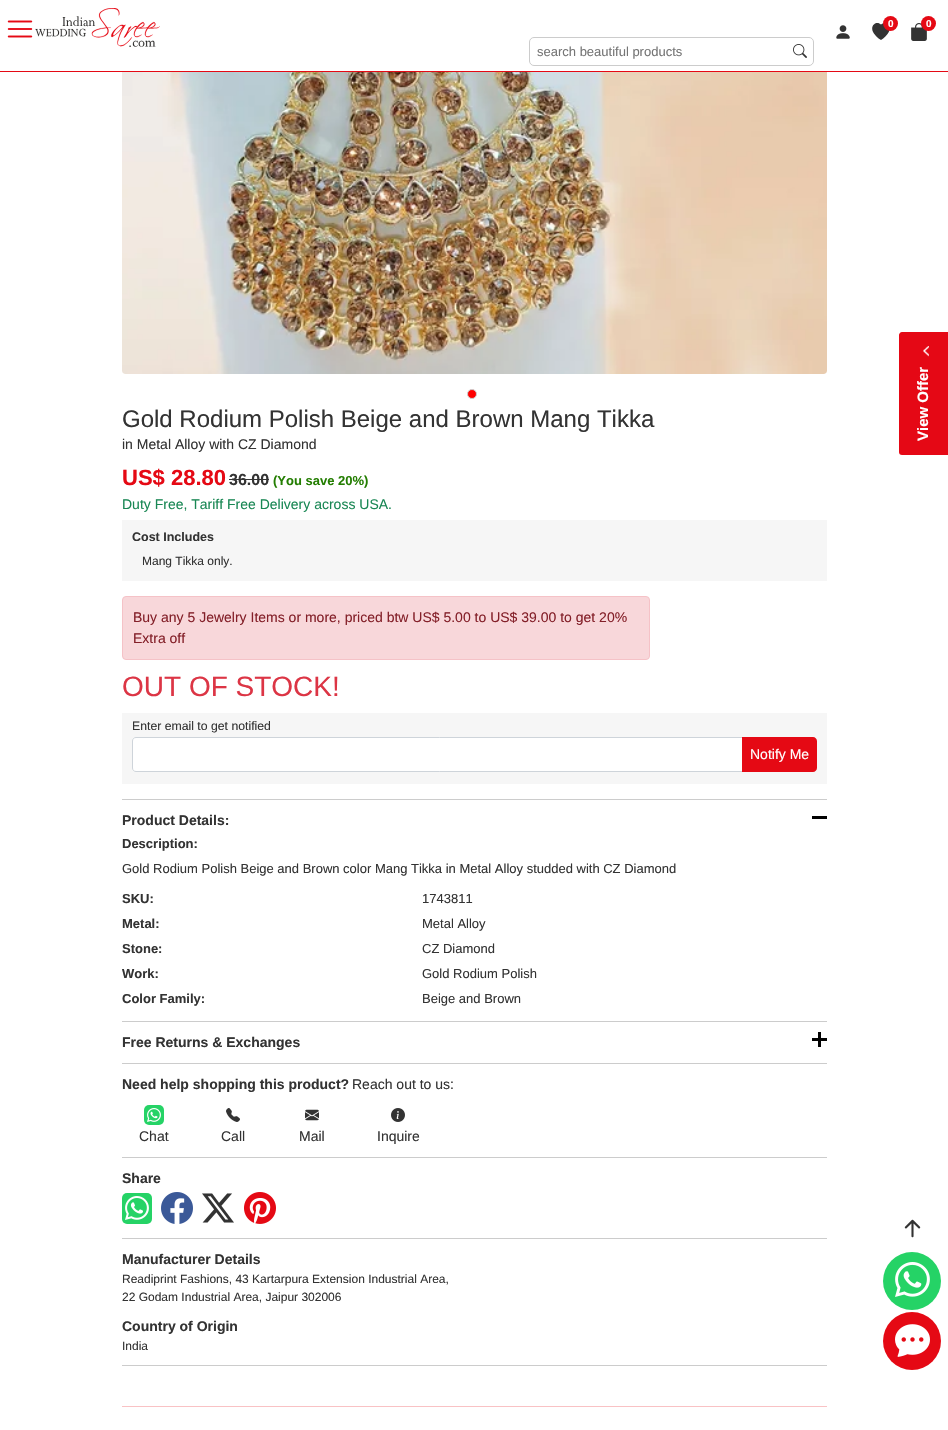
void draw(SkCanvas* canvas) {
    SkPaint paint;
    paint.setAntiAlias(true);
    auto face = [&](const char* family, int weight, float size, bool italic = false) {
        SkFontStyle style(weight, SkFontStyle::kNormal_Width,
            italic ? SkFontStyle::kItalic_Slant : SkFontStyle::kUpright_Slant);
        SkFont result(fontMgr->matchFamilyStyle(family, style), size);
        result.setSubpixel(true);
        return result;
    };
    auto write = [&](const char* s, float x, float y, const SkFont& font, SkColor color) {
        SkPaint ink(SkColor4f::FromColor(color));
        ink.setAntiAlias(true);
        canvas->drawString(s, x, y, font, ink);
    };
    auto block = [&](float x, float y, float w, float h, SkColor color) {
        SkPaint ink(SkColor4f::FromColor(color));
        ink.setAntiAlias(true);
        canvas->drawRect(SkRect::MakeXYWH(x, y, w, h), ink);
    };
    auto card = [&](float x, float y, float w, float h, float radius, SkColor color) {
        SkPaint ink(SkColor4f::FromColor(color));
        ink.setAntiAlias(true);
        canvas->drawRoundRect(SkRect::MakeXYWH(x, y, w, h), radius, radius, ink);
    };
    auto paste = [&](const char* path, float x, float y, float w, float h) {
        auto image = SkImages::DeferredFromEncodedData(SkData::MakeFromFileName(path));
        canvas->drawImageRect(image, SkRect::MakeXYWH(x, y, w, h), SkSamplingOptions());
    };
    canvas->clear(SK_ColorWHITE);
    block(0, 71, 948, 1, SkColorSetRGB(229, 9, 20));
    paste("pic1.png", 7, 20, 26, 18);
    paste("pic2.png", 35, 8, 125, 39);
    paint.setColor(SkColorSetRGB(51, 51, 51));
    canvas->drawPath(SkPathBuilder().moveTo(881, 24.5f).cubicTo(886, 19, 898, 28.5f, 881, 40).cubicTo(864, 28.5f, 876, 19, 881, 24.5f).close().detach(), paint);
    paint.setColor(SkColorSetRGB(229, 9, 20));
    canvas->drawCircle(890.5f, 23.5f, 7.5f, paint);
    auto kFont1 = face("Liberation Sans", 700, 10);
    write("0", 888, 27, kFont1, SK_ColorWHITE);
    paste("pic3.png", 911, 23, 16, 18);
    canvas->drawCircle(928.5f, 23.5f, 7.5f, paint);
    write("0", 926, 27, kFont1, SK_ColorWHITE);
    paste("pic4.png", 836, 25, 14, 14);
    paint.setStyle(SkPaint::kStroke_Style);
    paint.setStrokeWidth(1);
    paint.setColor(SkColorSetRGB(204, 204, 204));
    canvas->drawRoundRect(SkRect::MakeXYWH(529.5f, 37.5f, 284, 28), 4.5f, 4.5f, paint);
    auto kFont2 = face("Liberation Sans", 400, 13);
    write("search beautiful products", 537, 56, kFont2, SkColorSetRGB(117, 117, 117));
    paste("pic5.png", 793, 44, 14, 14);
    paste("pic6.png", 122, 72, 705, 302);
    paint.setStyle(SkPaint::kFill_Style);
    paint.setColor(SkColorSetRGB(255, 0, 0));
    canvas->drawCircle(472, 394, 4.5f, paint);
    paint.setStyle(SkPaint::kStroke_Style);
    paint.setColor(SkColorSetRGB(204, 204, 204));
    canvas->drawCircle(472, 394, 4.5f, paint);
    auto kFont3 = face("Liberation Sans", 400, 24);
    write("Gold Rodium Polish Beige and Brown Mang Tikka", 122, 427, kFont3, SkColorSetRGB(51, 51, 51));
    auto kFont4 = face("Liberation Sans", 400, 14);
    write("in Metal Alloy with CZ Diamond", 122, 449, kFont4, SkColorSetRGB(51, 51, 51));
    auto kFont5 = face("Liberation Sans", 700, 22);
    write("US$ 28.80", 122, 485, kFont5, SkColorSetRGB(229, 9, 20));
    auto kFont6 = face("Liberation Sans", 700, 16);
    write("36.00", 229, 485, kFont6, SkColorSetRGB(51, 51, 51));
    block(229, 479, 40, 1, SkColorSetRGB(51, 51, 51));
    auto kFont7 = face("Liberation Sans", 700, 13);
    write("(You save 20%)", 273, 485, kFont7, SkColorSetRGB(36, 126, 2));
    write("Duty Free, Tariff Free Delivery across USA.", 122, 509, kFont4, SkColorSetRGB(25, 135, 84));
    block(122, 520, 705, 61, SkColorSetRGB(246, 246, 246));
    auto kFont8 = face("Liberation Sans", 700, 12.5f);
    write("Cost Includes", 132, 541, kFont8, SkColorSetRGB(51, 51, 51));
    auto kFont9 = face("Liberation Sans", 400, 12);
    write("Mang Tikka only.", 142, 565, kFont9, SkColorSetRGB(51, 51, 51));
    paint.setStyle(SkPaint::kFill_Style);
    paint.setColor(SkColorSetRGB(248, 215, 218));
    canvas->drawRoundRect(SkRect::MakeXYWH(122.5f, 596.5f, 527, 63), 3.5f, 3.5f, paint);
    paint.setStyle(SkPaint::kStroke_Style);
    paint.setColor(SkColorSetRGB(245, 194, 199));
    canvas->drawRoundRect(SkRect::MakeXYWH(122.5f, 596.5f, 527, 63), 3.5f, 3.5f, paint);
    write("Buy any 5 Jewelry Items or more, priced btw US$ 5.00 to US$ 39.00 to get 20%", 133, 622, kFont4, SkColorSetRGB(132, 32, 41));
    write("Extra off", 133, 643, kFont4, SkColorSetRGB(132, 32, 41));
    auto kFont10 = face("Liberation Sans", 400, 28);
    write("OUT OF STOCK!", 122, 696, kFont10, SkColorSetRGB(220, 53, 69));
    block(122, 713, 705, 71, SkColorSetRGB(246, 246, 246));
    auto kFont11 = face("Liberation Sans", 400, 12.25f);
    write("Enter email to get notified", 132, 730, kFont11, SkColorSetRGB(51, 51, 51));
    paint.setStyle(SkPaint::kFill_Style);
    paint.setColor(SK_ColorWHITE);
    canvas->drawPath(SkPathBuilder().moveTo(136, 737.5f).lineTo(742.5f, 737.5f).lineTo(742.5f, 771.5f).lineTo(136, 771.5f).cubicTo(134, 771.5f, 132.5f, 770, 132.5f, 768).lineTo(132.5f, 741).cubicTo(132.5f, 739, 134, 737.5f, 136, 737.5f).close().detach(), paint);
    paint.setStyle(SkPaint::kStroke_Style);
    paint.setColor(SkColorSetRGB(206, 212, 218));
    canvas->drawPath(SkPathBuilder().moveTo(136, 737.5f).lineTo(742.5f, 737.5f).lineTo(742.5f, 771.5f).lineTo(136, 771.5f).cubicTo(134, 771.5f, 132.5f, 770, 132.5f, 768).lineTo(132.5f, 741).cubicTo(132.5f, 739, 134, 737.5f, 136, 737.5f).close().detach(), paint);
    paint.setStyle(SkPaint::kFill_Style);
    paint.setColor(SkColorSetRGB(229, 9, 20));
    canvas->drawPath(SkPathBuilder().moveTo(742, 737).lineTo(813, 737).cubicTo(815, 737, 817, 739, 817, 741).lineTo(817, 768).cubicTo(817, 770, 815, 772, 813, 772).lineTo(742, 772).close().detach(), paint);
    write("Notify Me", 750, 759, kFont4, SK_ColorWHITE);
    block(122, 799, 705, 1, SkColorSetRGB(204, 204, 204));
    auto kFont12 = face("Liberation Sans", 700, 14);
    write("Product Details:", 122, 825, kFont12, SkColorSetRGB(51, 51, 51));
    block(812, 816, 15, 3, SkColorSetRGB(1, 1, 1));
    write("Description:", 122, 848, kFont7, SkColorSetRGB(51, 51, 51));
    write("Gold Rodium Polish Beige and Brown color Mang Tikka in Metal Alloy studded with CZ Diamond", 122, 873, kFont2, SkColorSetRGB(51, 51, 51));
    write("SKU:", 122, 903, kFont7, SkColorSetRGB(51, 51, 51));
    write("1743811", 422, 903, kFont2, SkColorSetRGB(51, 51, 51));
    write("Metal:", 122, 928, kFont7, SkColorSetRGB(51, 51, 51));
    write("Metal Alloy", 422, 928, kFont2, SkColorSetRGB(51, 51, 51));
    write("Stone:", 122, 953, kFont7, SkColorSetRGB(51, 51, 51));
    write("CZ Diamond", 422, 953, kFont2, SkColorSetRGB(51, 51, 51));
    write("Work:", 122, 978, kFont7, SkColorSetRGB(51, 51, 51));
    write("Gold Rodium Polish", 422, 978, kFont2, SkColorSetRGB(51, 51, 51));
    write("Color Family:", 122, 1003, kFont7, SkColorSetRGB(51, 51, 51));
    write("Beige and Brown", 422, 1003, kFont2, SkColorSetRGB(51, 51, 51));
    block(122, 1021, 705, 1, SkColorSetRGB(204, 204, 204));
    write("Free Returns & Exchanges", 122, 1047, kFont12, SkColorSetRGB(51, 51, 51));
    paste("pic7.png", 812, 1032, 15, 15);
    block(122, 1063, 705, 1, SkColorSetRGB(204, 204, 204));
    write("Need help shopping this product?", 122, 1089, kFont12, SkColorSetRGB(51, 51, 51));
    write("Reach out to us:", 352, 1089, kFont4, SkColorSetRGB(51, 51, 51));
    card(144, 1105, 20, 20, 5, SkColorSetRGB(37, 211, 102));
    paste("pic8.png", 147, 1108, 14, 14);
    write("Chat", 139, 1141, kFont4, SkColorSetRGB(51, 51, 51));
    paste("pic9.png", 226, 1108, 14, 14);
    write("Call", 221, 1141, kFont4, SkColorSetRGB(51, 51, 51));
    paste("pic10.png", 305, 1109, 14, 12);
    write("Mail", 299, 1141, kFont4, SkColorSetRGB(51, 51, 51));
    paste("pic11.png", 391, 1108, 14, 14);
    write("Inquire", 377, 1141, kFont4, SkColorSetRGB(51, 51, 51));
    block(122, 1157, 705, 1, SkColorSetRGB(204, 204, 204));
    write("Share", 122, 1183, kFont12, SkColorSetRGB(51, 51, 51));
    card(122, 1193, 30, 31, 5, SkColorSetRGB(37, 211, 102));
    paste("pic12.png", 125, 1196, 24, 24);
    paste("pic13.png", 161, 1192, 32, 32);
    paste("pic14.png", 202, 1193, 32, 30);
    paste("pic15.png", 244, 1192, 32, 32);
    block(122, 1238, 705, 1, SkColorSetRGB(204, 204, 204));
    block(122, 1365, 705, 1, SkColorSetRGB(204, 204, 204));
    write("Manufacturer Details", 122, 1264, kFont12, SkColorSetRGB(51, 51, 51));
    write("Readiprint Fashions, 43 Kartarpura Extension Industrial Area,", 122, 1283, kFont9, SkColorSetRGB(51, 51, 51));
    write("22 Godam Industrial Area, Jaipur 302006", 122, 1301, kFont9, SkColorSetRGB(51, 51, 51));
    write("Country of Origin", 122, 1331, kFont12, SkColorSetRGB(51, 51, 51));
    write("India", 122, 1350, kFont9, SkColorSetRGB(51, 51, 51));
    paste("pic16.png", 904, 1219, 17, 19);
    paint.setColor(SkColorSetRGB(229, 8, 21));
    canvas->drawPath(SkPathBuilder().moveTo(899, 452).lineTo(899, 335).cubicTo(899, 334, 900, 332, 902, 332).lineTo(948, 332).lineTo(948, 455).lineTo(902, 455).cubicTo(900, 455, 899, 454, 899, 452).close().detach(), paint);
    paste("pic17.png", 923, 346, 6, 11);
    auto kFont13 = face("Liberation Sans", 700, 15);
    canvas->save();
    canvas->rotate(-90, 928, 441);
    write("View Offer", 928, 441, kFont13, SK_ColorWHITE);
    canvas->restore();
    paint.setColor(SkColorSetRGB(37, 211, 102));
    canvas->drawCircle(912, 1281, 29, paint);
    paste("pic18.png", 895, 1262, 35, 35);
    paint.setColor(SkColorSetRGB(229, 9, 20));
    canvas->drawCircle(912, 1341, 29, paint);
    paste("pic19.png", 895, 1324, 35, 33);
    block(122, 1406, 705, 1, SkColorSetRGB(249, 194, 196));
}
